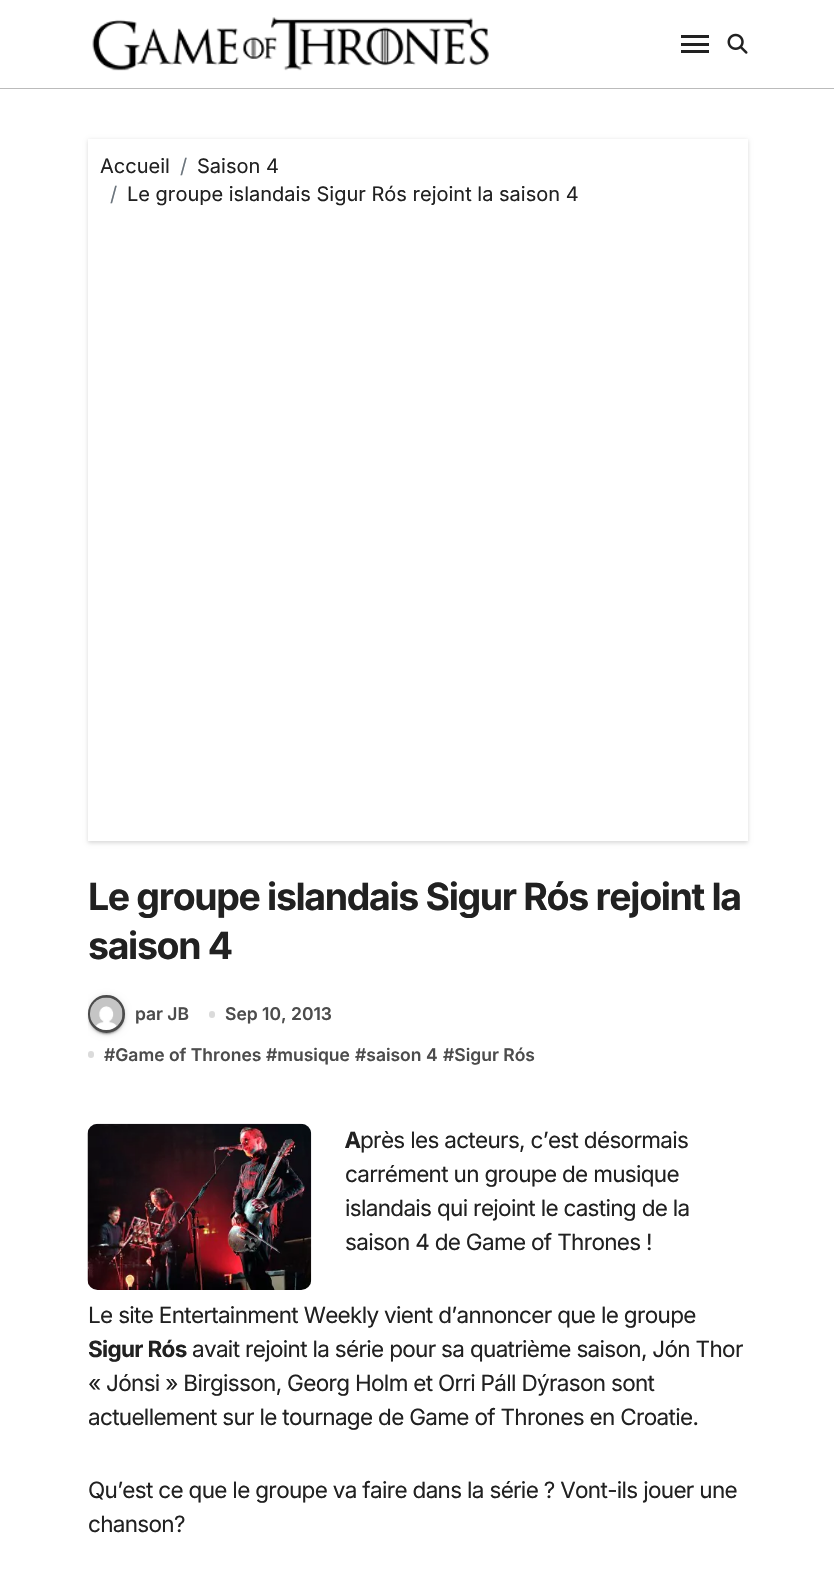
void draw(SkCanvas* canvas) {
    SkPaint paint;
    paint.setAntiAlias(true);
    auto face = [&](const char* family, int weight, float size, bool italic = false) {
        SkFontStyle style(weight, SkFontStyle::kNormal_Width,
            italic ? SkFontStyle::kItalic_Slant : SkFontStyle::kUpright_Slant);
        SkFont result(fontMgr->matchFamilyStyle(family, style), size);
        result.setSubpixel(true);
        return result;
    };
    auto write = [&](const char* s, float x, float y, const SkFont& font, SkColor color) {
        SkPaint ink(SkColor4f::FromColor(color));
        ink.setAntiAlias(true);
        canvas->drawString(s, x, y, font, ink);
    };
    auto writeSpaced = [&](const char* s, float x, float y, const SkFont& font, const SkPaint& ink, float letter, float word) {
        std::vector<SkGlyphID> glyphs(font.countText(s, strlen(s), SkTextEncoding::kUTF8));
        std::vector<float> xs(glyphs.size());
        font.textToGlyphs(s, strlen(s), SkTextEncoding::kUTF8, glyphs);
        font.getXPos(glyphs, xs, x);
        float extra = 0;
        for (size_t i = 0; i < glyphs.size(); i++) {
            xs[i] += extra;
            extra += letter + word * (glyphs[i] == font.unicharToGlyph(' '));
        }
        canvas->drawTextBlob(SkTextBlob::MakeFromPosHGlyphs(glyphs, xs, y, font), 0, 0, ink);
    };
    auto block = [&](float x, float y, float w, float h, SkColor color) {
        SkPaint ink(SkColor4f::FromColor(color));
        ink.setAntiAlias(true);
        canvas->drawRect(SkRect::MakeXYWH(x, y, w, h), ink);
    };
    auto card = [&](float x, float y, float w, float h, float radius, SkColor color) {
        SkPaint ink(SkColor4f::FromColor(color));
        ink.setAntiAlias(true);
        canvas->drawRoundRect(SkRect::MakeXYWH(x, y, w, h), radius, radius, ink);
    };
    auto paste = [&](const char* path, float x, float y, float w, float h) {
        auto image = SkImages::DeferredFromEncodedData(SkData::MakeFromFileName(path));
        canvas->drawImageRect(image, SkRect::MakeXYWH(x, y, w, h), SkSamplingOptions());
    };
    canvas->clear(SK_ColorWHITE);
    block(0, 88, 834, 1, SkColorSetRGB(187, 187, 187));
    paste("pic1.png", 92, 17, 397, 54);
    block(681, 35, 28, 3, SkColorSetRGB(33, 33, 33));
    block(681, 43, 28, 3, SkColorSetRGB(33, 33, 33));
    block(681, 50, 28, 3, SkColorSetRGB(33, 33, 33));
    paste("pic2.png", 727, 33, 21, 21);
    canvas->save();
    canvas->clipPath(SkPathBuilder(SkPathFillType::kEvenOdd).moveTo(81, 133).lineTo(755, 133).lineTo(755, 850).lineTo(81, 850).close().moveTo(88, 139).lineTo(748, 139).lineTo(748, 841).lineTo(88, 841).close().detach(), true);
    paint.setColor(SkColorSetARGB(38, 0, 0, 0));
    paint.setMaskFilter(SkMaskFilter::MakeBlur(kNormal_SkBlurStyle, 2));
    canvas->drawRect(SkRect::MakeXYWH(88, 140, 660, 703), paint);
    paint.setMaskFilter(nullptr);
    canvas->restore();
    auto kFont1 = face("Inter", 400, 20);
    write("Accueil", 100, 173, kFont1, SkColorSetRGB(33, 33, 33));
    write("/", 180, 173, kFont1, SkColorSetRGB(108, 117, 125));
    write("Saison 4", 197, 173, kFont1, SkColorSetRGB(33, 33, 33));
    write("/", 110, 201, kFont1, SkColorSetRGB(108, 117, 125));
    write("Le groupe islandais Sigur Rós rejoint la saison 4", 127, 201, kFont1, SkColorSetRGB(33, 33, 33));
    auto kFont2 = face("Inter", 700, 37.5f);
    paint.setColor(SkColorSetRGB(33, 33, 33));
    writeSpaced("Le groupe islandais Sigur Rós rejoint la", 88, 910, kFont2, paint, -1.35f, 0);
    writeSpaced("saison 4", 88, 959, kFont2, paint, -1.35f, 0);
    canvas->save();
    canvas->clipRect(SkRect::MakeXYWH(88, 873, 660, 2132));
    paint.setColor(SkColorSetARGB(31, 0, 0, 0));
    paint.setMaskFilter(SkMaskFilter::MakeBlur(kNormal_SkBlurStyle, 3));
    canvas->drawRoundRect(SkRect::MakeXYWH(88, 996, 37, 38), 18.5f, 18.5f, paint);
    paint.setMaskFilter(nullptr);
    canvas->restore();
    paint.setColor(SkColorSetARGB(51, 0, 0, 0));
    paint.setMaskFilter(SkMaskFilter::MakeBlur(kNormal_SkBlurStyle, 0.5f));
    canvas->drawRoundRect(SkRect::MakeXYWH(90, 1001, 33, 33), 16.5f, 16.5f, paint);
    paint.setMaskFilter(nullptr);
    paint.setColor(SkColorSetARGB(36, 0, 0, 0));
    paint.setMaskFilter(SkMaskFilter::MakeBlur(kNormal_SkBlurStyle, 1));
    canvas->drawRoundRect(SkRect::MakeXYWH(88, 998, 37, 37), 18.5f, 18.5f, paint);
    paint.setMaskFilter(nullptr);
    paint.setStyle(SkPaint::kStroke_Style);
    paint.setStrokeWidth(3);
    paint.setColor(SkColorSetRGB(76, 76, 76));
    canvas->drawRoundRect(SkRect::MakeXYWH(89.5f, 996.5f, 34, 35), 17, 17, paint);
    paste("pic3.png", 90, 997, 33, 33);
    auto kFont3 = face("Inter", 600, 17.5f);
    write("par JB", 135, 1020, kFont3, SkColorSetRGB(76, 76, 76));
    card(209, 1011, 6, 7, 3, SkColorSetRGB(219, 219, 219));
    write("Sep 10, 2013", 225, 1020, kFont3, SkColorSetRGB(76, 76, 76));
    card(88, 1051, 6, 7, 3, SkColorSetRGB(219, 219, 219));
    write("#Game of Thrones", 104, 1061, kFont3, SkColorSetRGB(76, 76, 76));
    write("#musique", 266, 1061, kFont3, SkColorSetRGB(76, 76, 76));
    write("#saison 4", 355, 1061, kFont3, SkColorSetRGB(76, 76, 76));
    write("#Sigur Rós", 443, 1061, kFont3, SkColorSetRGB(76, 76, 76));
    paste("pic4.png", 87, 1123, 225, 167);
    auto kFont4 = face("Noto Sans", 700, 22.5f);
    paint.setStyle(SkPaint::kFill_Style);
    paint.setColor(SkColorSetRGB(33, 33, 33));
    writeSpaced("A", 345, 1148, kFont4, paint, -0.68f, 0);
    auto kFont5 = face("Inter", 400, 22.5f);
    writeSpaced("près les acteurs, c’est désormais", 360, 1148, kFont5, paint, -0.68f, 0);
    writeSpaced("carrément un groupe de musique", 345, 1182, kFont5, paint, -0.68f, 0);
    writeSpaced("islandais qui rejoint le casting de la", 345, 1216, kFont5, paint, -0.68f, 0);
    writeSpaced("saison 4 de Game of Thrones !", 345, 1250, kFont5, paint, -0.68f, 0);
    writeSpaced("Le site Entertainment Weekly vient d’annoncer que le groupe", 88, 1323, kFont5, paint, -0.68f, 0);
    auto kFont6 = face("Inter", 700, 22.5f);
    writeSpaced("Sigur Rós", 88, 1357, kFont6, paint, -0.68f, 0);
    writeSpaced("avait rejoint la série pour sa quatrième saison, Jón Thor", 192, 1357, kFont5, paint, -0.68f, 0);
    writeSpaced("« Jónsi » Birgisson, Georg Holm et Orri Páll Dýrason sont", 88, 1391, kFont5, paint, -0.68f, 0);
    writeSpaced("actuellement sur le tournage de Game of Thrones en Croatie.", 88, 1425, kFont5, paint, -0.68f, 0);
    writeSpaced("Qu’est ce que le groupe va faire dans la série ? Vont-ils jouer une", 88, 1498, kFont5, paint, -0.68f, 0);
    writeSpaced("chanson?", 88, 1532, kFont5, paint, -0.68f, 0);
}
